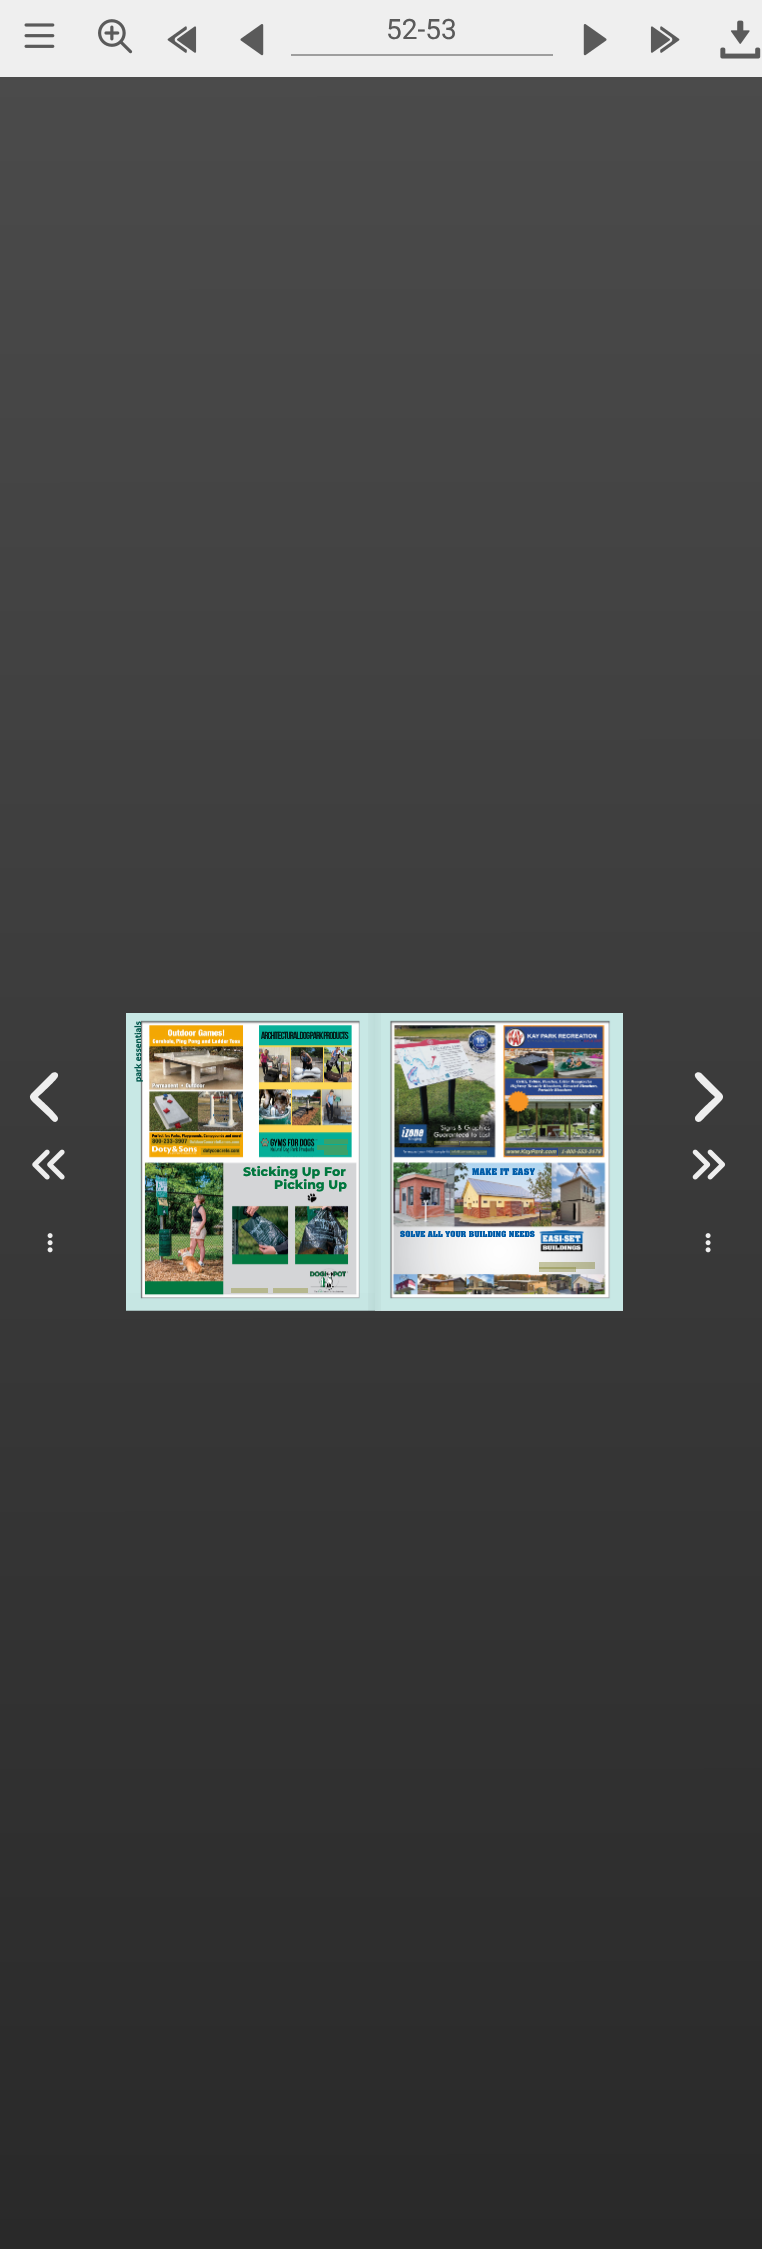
void draw(SkCanvas* canvas) {
    SkPaint paint;
    paint.setAntiAlias(true);
    auto face = [&](const char* family, int weight, float size, bool italic = false) {
        SkFontStyle style(weight, SkFontStyle::kNormal_Width,
            italic ? SkFontStyle::kItalic_Slant : SkFontStyle::kUpright_Slant);
        SkFont result(fontMgr->matchFamilyStyle(family, style), size);
        result.setSubpixel(true);
        return result;
    };
    auto write = [&](const char* s, float x, float y, const SkFont& font, SkColor color) {
        SkPaint ink(SkColor4f::FromColor(color));
        ink.setAntiAlias(true);
        canvas->drawString(s, x, y, font, ink);
    };
    auto writeSpaced = [&](const char* s, float x, float y, const SkFont& font, const SkPaint& ink, float letter, float word) {
        std::vector<SkGlyphID> glyphs(font.countText(s, strlen(s), SkTextEncoding::kUTF8));
        std::vector<float> xs(glyphs.size());
        font.textToGlyphs(s, strlen(s), SkTextEncoding::kUTF8, glyphs);
        font.getXPos(glyphs, xs, x);
        float extra = 0;
        for (size_t i = 0; i < glyphs.size(); i++) {
            xs[i] += extra;
            extra += letter + word * (glyphs[i] == font.unicharToGlyph(' '));
        }
        canvas->drawTextBlob(SkTextBlob::MakeFromPosHGlyphs(glyphs, xs, y, font), 0, 0, ink);
    };
    auto block = [&](float x, float y, float w, float h, SkColor color) {
        SkPaint ink(SkColor4f::FromColor(color));
        ink.setAntiAlias(true);
        canvas->drawRect(SkRect::MakeXYWH(x, y, w, h), ink);
    };
    auto paste = [&](const char* path, float x, float y, float w, float h) {
        auto image = SkImages::DeferredFromEncodedData(SkData::MakeFromFileName(path));
        canvas->drawImageRect(image, SkRect::MakeXYWH(x, y, w, h), SkSamplingOptions());
    };
    canvas->clear(SK_ColorWHITE);
    {
        const SkColor colors[] = {SkColorSetRGB(76, 76, 76), SkColorSetRGB(41, 41, 41)};
        const float stops[] = {0, 1};
        const SkPoint ends[] = {{381, 0}, {382, 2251}};
        paint.setShader(SkGradientShader::MakeLinear(ends, colors, stops, 2, SkTileMode::kClamp));
        paint.setAlpha(255);
    }
    canvas->drawRect(SkRect::MakeXYWH(0, 77, 762, 2172), paint);
    block(0, 0, 762, 77, SkColorSetRGB(239, 239, 239));
    paste("pic1.png", 24, 23, 31, 25);
    paste("pic2.png", 98, 19, 35, 35);
    paste("pic3.png", 167, 26, 30, 27);
    paste("pic4.png", 240, 24, 24, 32);
    block(291, 54, 262, 2, SkColorSetRGB(158, 158, 158));
    auto kFont1 = face("Roboto", 400, 28);
    write("52-53", 386, 39, kFont1, SkColorSetRGB(90, 90, 90));
    paste("pic5.png", 583, 24, 24, 32);
    paste("pic6.png", 650, 26, 30, 27);
    paste("pic7.png", 720, 20, 41, 39);
    paint.setShader(nullptr);
    paint.setColor(SkColorSetRGB(238, 238, 238));
    canvas->drawPath(SkPathBuilder().moveTo(31, 1094).cubicTo(28, 1098, 32, 1101, 34, 1103).lineTo(49, 1117).cubicTo(51, 1119, 54, 1124, 57, 1121).cubicTo(58, 1120, 58, 1119, 58, 1118).cubicTo(58, 1115, 41, 1100, 38, 1097).cubicTo(41, 1094, 58, 1079, 58, 1076).cubicTo(59, 1073, 55, 1071, 52, 1073).close().detach(), paint);
    paste("pic8.png", 32, 1149, 33, 31);
    paste("pic9.png", 47, 1233, 6, 20);
    paste("pic10.png", 126, 1013, 249, 280);
    paste("pic11.png", 375, 1013, 248, 298);
    paste("pic12.png", 126, 1013, 249, 298);
    auto kFont2 = face("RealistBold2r", 700, 9.25f);
    canvas->save();
    canvas->rotate(-90, 141, 1082);
    write("park essentials", 141, 1082, kFont2, SkColorSetRGB(1, 88, 77));
    canvas->restore();
    auto kFont3 = face("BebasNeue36", 400, 10.25f);
    paint.setColor(SkColorSetRGB(2, 26, 23));
    writeSpaced("Architectural dog park products", 261, 1039, kFont3, paint, -0.9f, 0);
    auto kFont4 = face("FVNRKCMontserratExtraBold", 800, 12.5f);
    write("Sticking Up For", 243, 1176, kFont4, SkColorSetRGB(1, 119, 62));
    write("Picking Up", 274, 1189, kFont4, SkColorSetRGB(1, 119, 62));
    {
        const SkColor colors[] = {SkColorSetARGB(0, 0, 0, 0), SkColorSetARGB(13, 0, 0, 0)};
        const float stops[] = {0.95f, 1};
        const SkPoint ends[] = {{126, 1164}, {375, 1164}};
        paint.setShader(SkGradientShader::MakeLinear(ends, colors, stops, 2, SkTileMode::kClamp));
        paint.setAlpha(255);
    }
    canvas->drawRect(SkRect::MakeXYWH(368, 1013, 7, 298), paint);
    block(151, 1138, 36, 7, SkColorSetARGB(102, 139, 139, 34));
    block(187, 1139, 53, 7, SkColorSetARGB(102, 139, 139, 34));
    block(324, 1139, 24, 5, SkColorSetRGB(59, 161, 105));
    block(317, 1145, 30, 5, SkColorSetRGB(59, 161, 105));
    block(201, 1148, 39, 7, SkColorSetARGB(102, 139, 139, 34));
    block(324, 1150, 24, 5, SkColorSetRGB(59, 161, 105));
    block(231, 1288, 37, 5, SkColorSetRGB(182, 183, 142));
    block(273, 1288, 35, 5, SkColorSetRGB(182, 183, 142));
    paste("pic13.png", 375, 1013, 248, 298);
    {
        const SkColor colors[] = {SkColorSetARGB(0, 0, 0, 0), SkColorSetARGB(10, 0, 0, 0)};
        const float stops[] = {0.95f, 1};
        const SkPoint ends[] = {{623, 1164}, {375, 1164}};
        paint.setShader(SkGradientShader::MakeLinear(ends, colors, stops, 2, SkTileMode::kClamp));
        paint.setAlpha(255);
    }
    canvas->drawRect(SkRect::MakeXYWH(375, 1013, 6, 298), paint);
    block(434, 1141, 25, 4, SkColorSetARGB(102, 126, 126, 38));
    block(460, 1141, 30, 5, SkColorSetARGB(102, 126, 126, 38));
    block(450, 1150, 37, 5, SkColorSetARGB(102, 126, 126, 38));
    block(504, 1150, 53, 5, SkColorSetARGB(102, 126, 126, 38));
    block(558, 1148, 44, 9, SkColorSetARGB(102, 126, 126, 38));
    auto kFont5 = face("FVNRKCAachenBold", 700, 7.75f);
    paint.setShader(nullptr);
    paint.setColor(SkColorSetRGB(1, 93, 169));
    writeSpaced("MAKE IT EASY", 472, 1175, kFont5, paint, 0.25f, 0);
    auto kFont6 = face("FVNRKCAachenBold", 700, 7.1f);
    writeSpaced("SOLVE ALL YOUR BUILDING NEEDS", 400, 1237, kFont6, paint, 0.1f, 0);
    block(539, 1262, 56, 7, SkColorSetARGB(102, 125, 125, 37));
    block(539, 1267, 37, 5, SkColorSetARGB(102, 125, 125, 37));
    paint.setColor(SkColorSetRGB(238, 238, 238));
    canvas->drawPath(SkPathBuilder().moveTo(722, 1094).cubicTo(725, 1098, 721, 1101, 719, 1103).lineTo(705, 1117).cubicTo(703, 1119, 700, 1124, 696, 1121).cubicTo(695, 1120, 695, 1119, 695, 1118).cubicTo(695, 1115, 712, 1100, 715, 1097).cubicTo(712, 1094, 695, 1079, 695, 1076).cubicTo(694, 1073, 698, 1071, 701, 1073).close().detach(), paint);
    paste("pic14.png", 692, 1149, 34, 31);
    paste("pic9.png", 705, 1233, 6, 20);
}
